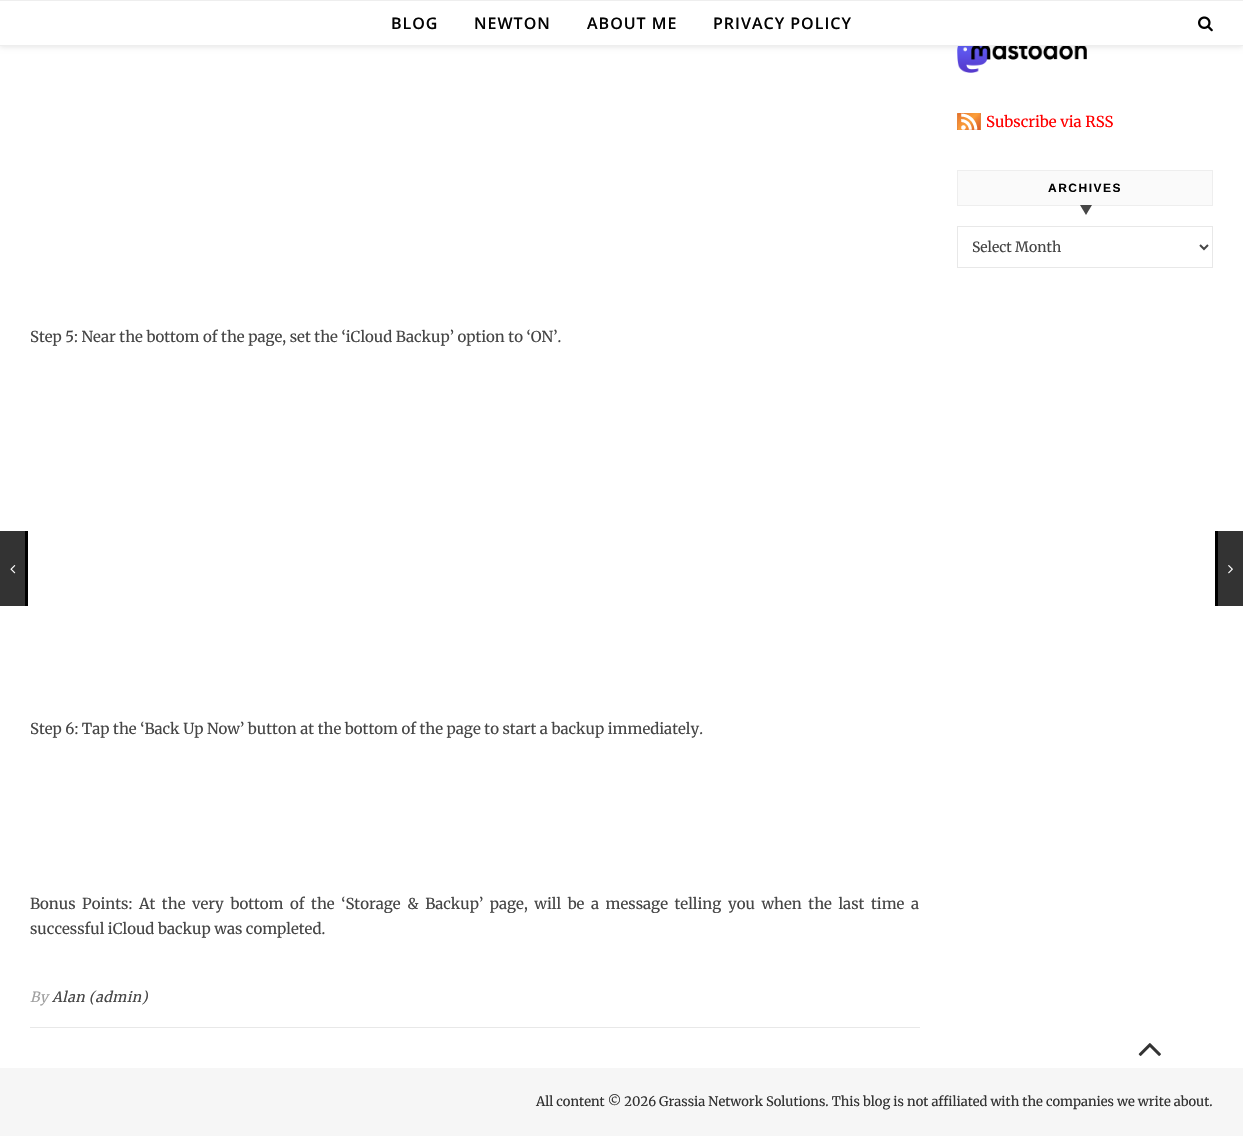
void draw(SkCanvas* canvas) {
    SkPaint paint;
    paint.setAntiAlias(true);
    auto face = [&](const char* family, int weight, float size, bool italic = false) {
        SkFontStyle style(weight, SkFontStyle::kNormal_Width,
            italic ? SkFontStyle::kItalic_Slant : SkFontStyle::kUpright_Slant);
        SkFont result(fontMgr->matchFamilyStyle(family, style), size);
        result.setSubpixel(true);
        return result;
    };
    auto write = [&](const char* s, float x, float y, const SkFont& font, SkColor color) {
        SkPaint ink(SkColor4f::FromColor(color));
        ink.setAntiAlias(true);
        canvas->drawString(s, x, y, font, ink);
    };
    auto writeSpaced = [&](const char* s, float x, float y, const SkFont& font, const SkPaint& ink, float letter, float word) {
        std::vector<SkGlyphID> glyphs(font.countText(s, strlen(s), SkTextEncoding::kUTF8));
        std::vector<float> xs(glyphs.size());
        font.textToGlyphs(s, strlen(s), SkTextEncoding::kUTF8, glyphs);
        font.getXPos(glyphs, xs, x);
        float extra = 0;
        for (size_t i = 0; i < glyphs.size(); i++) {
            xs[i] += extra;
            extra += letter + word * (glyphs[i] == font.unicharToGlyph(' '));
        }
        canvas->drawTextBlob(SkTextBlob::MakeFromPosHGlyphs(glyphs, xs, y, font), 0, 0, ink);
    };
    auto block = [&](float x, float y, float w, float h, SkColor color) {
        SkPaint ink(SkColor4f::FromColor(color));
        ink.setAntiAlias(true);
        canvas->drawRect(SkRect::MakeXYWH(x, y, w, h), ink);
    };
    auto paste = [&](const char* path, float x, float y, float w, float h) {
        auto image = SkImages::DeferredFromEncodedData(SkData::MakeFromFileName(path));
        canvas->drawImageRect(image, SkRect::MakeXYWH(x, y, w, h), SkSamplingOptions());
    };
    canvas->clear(SK_ColorWHITE);
    paste("pic2.png", 957, 46, 130, 27);
    paint.setColor(SkColorSetARGB(26, 0, 0, 0));
    paint.setMaskFilter(SkMaskFilter::MakeBlur(kNormal_SkBlurStyle, 2.5f));
    canvas->drawRect(SkRect::MakeXYWH(0, 1, 1243, 46), paint);
    paint.setMaskFilter(nullptr);
    block(0, 1, 1243, 44, SK_ColorWHITE);
    block(0, 0, 1243, 1, SkColorSetRGB(238, 238, 238));
    block(0, 45, 1243, 1, SkColorSetRGB(238, 238, 238));
    auto kFont1 = face("Open Sans", 600, 16);
    paint.setColor(SkColorSetRGB(3, 3, 3));
    writeSpaced("BLOG", 391, 29, kFont1, paint, 1, 0);
    writeSpaced("NEWTON", 474, 29, kFont1, paint, 1, 0);
    writeSpaced("ABOUT ME", 587, 29, kFont1, paint, 1, 0);
    writeSpaced("PRIVACY POLICY", 713, 29, kFont1, paint, 1, 0);
    paste("pic1.png", 1198, 16, 15, 16);
    paste("pic3.png", 957, 113, 24, 17);
    auto kFont2 = face("Merriweather", 400, 15);
    write("Subscribe via RSS", 986, 127, kFont2, SkColorSetRGB(255, 0, 0));
    paint.setColor(SkColorSetRGB(250, 250, 250));
    canvas->drawRect(SkRect::MakeXYWH(957.5f, 170.5f, 255, 35), paint);
    paint.setStyle(SkPaint::kStroke_Style);
    paint.setStrokeWidth(1);
    paint.setColor(SkColorSetRGB(238, 238, 238));
    canvas->drawRect(SkRect::MakeXYWH(957.5f, 170.5f, 255, 35), paint);
    auto kFont3 = face("Liberation Sans", 700, 12);
    paint.setStyle(SkPaint::kFill_Style);
    paint.setColor(SkColorSetRGB(3, 3, 3));
    writeSpaced("ARCHIVES", 1048, 192, kFont3, paint, 1.5f, 0);
    paint.setColor(SkColorSetRGB(70, 70, 70));
    canvas->drawPath(SkPathBuilder().moveTo(1080, 205).lineTo(1092, 205).lineTo(1086, 215).close().detach(), paint);
    paint.setStyle(SkPaint::kStroke_Style);
    paint.setColor(SkColorSetRGB(232, 232, 232));
    canvas->drawRect(SkRect::MakeXYWH(957.5f, 226.5f, 255, 41), paint);
    paint.setStrokeWidth(2);
    paint.setColor(SkColorSetRGB(70, 70, 70));
    canvas->drawPath(SkPathBuilder().moveTo(1200, 245).lineTo(1204, 249).lineTo(1208, 245).detach(), paint);
    auto kFont4 = face("Merriweather", 400, 14);
    write("Select Month", 972, 252, kFont4, SkColorSetRGB(70, 70, 70));
    block(0, 531, 25, 75, SkColorSetRGB(51, 51, 51));
    paste("pic4.png", 10, 565, 6, 9);
    block(25, 531, 3, 75, SK_ColorBLACK);
    write("Step 5: Near the bottom of the page, set the ‘iCloud Backup’ option to ‘ON’.", 30, 342, kFont2, SkColorSetRGB(70, 70, 70));
    write("Step 6: Tap the ‘Back Up Now’ button at the bottom of the page to start a backup immediately.", 30, 734, kFont2, SkColorSetRGB(70, 70, 70));
    paint.setStyle(SkPaint::kFill_Style);
    writeSpaced("Bonus Points: At the very bottom of the ‘Storage & Backup’ page, will be a message telling you when the last time a", 30, 909, kFont2, paint, 0, 3);
    write("successful iCloud backup was completed.", 30, 934, kFont2, SkColorSetRGB(70, 70, 70));
    block(30, 1027, 890, 1, SkColorSetRGB(232, 232, 232));
    auto kFont5 = face("Merriweather", 400, 14, true);
    paint.setColor(SkColorSetRGB(161, 161, 161));
    writeSpaced("By", 30, 1002, kFont5, paint, 0.5f, 0);
    paint.setColor(SkColorSetRGB(70, 70, 70));
    writeSpaced("Alan (admin)", 52, 1002, kFont5, paint, 0.5f, 0);
    block(1215, 531, 3, 75, SK_ColorBLACK);
    block(1218, 531, 25, 75, SkColorSetRGB(51, 51, 51));
    paste("pic5.png", 1228, 565, 5, 9);
    block(0, 1068, 1243, 68, SkColorSetRGB(246, 246, 246));
    paste("pic6.png", 1138, 1043, 23, 13);
    auto kFont6 = face("Merriweather", 400, 13);
    write("All content © 2026 Grassia Network Solutions. This blog is not affiliated with the companies we write about.", 536, 1106, kFont6, SkColorSetRGB(51, 51, 51));
}
